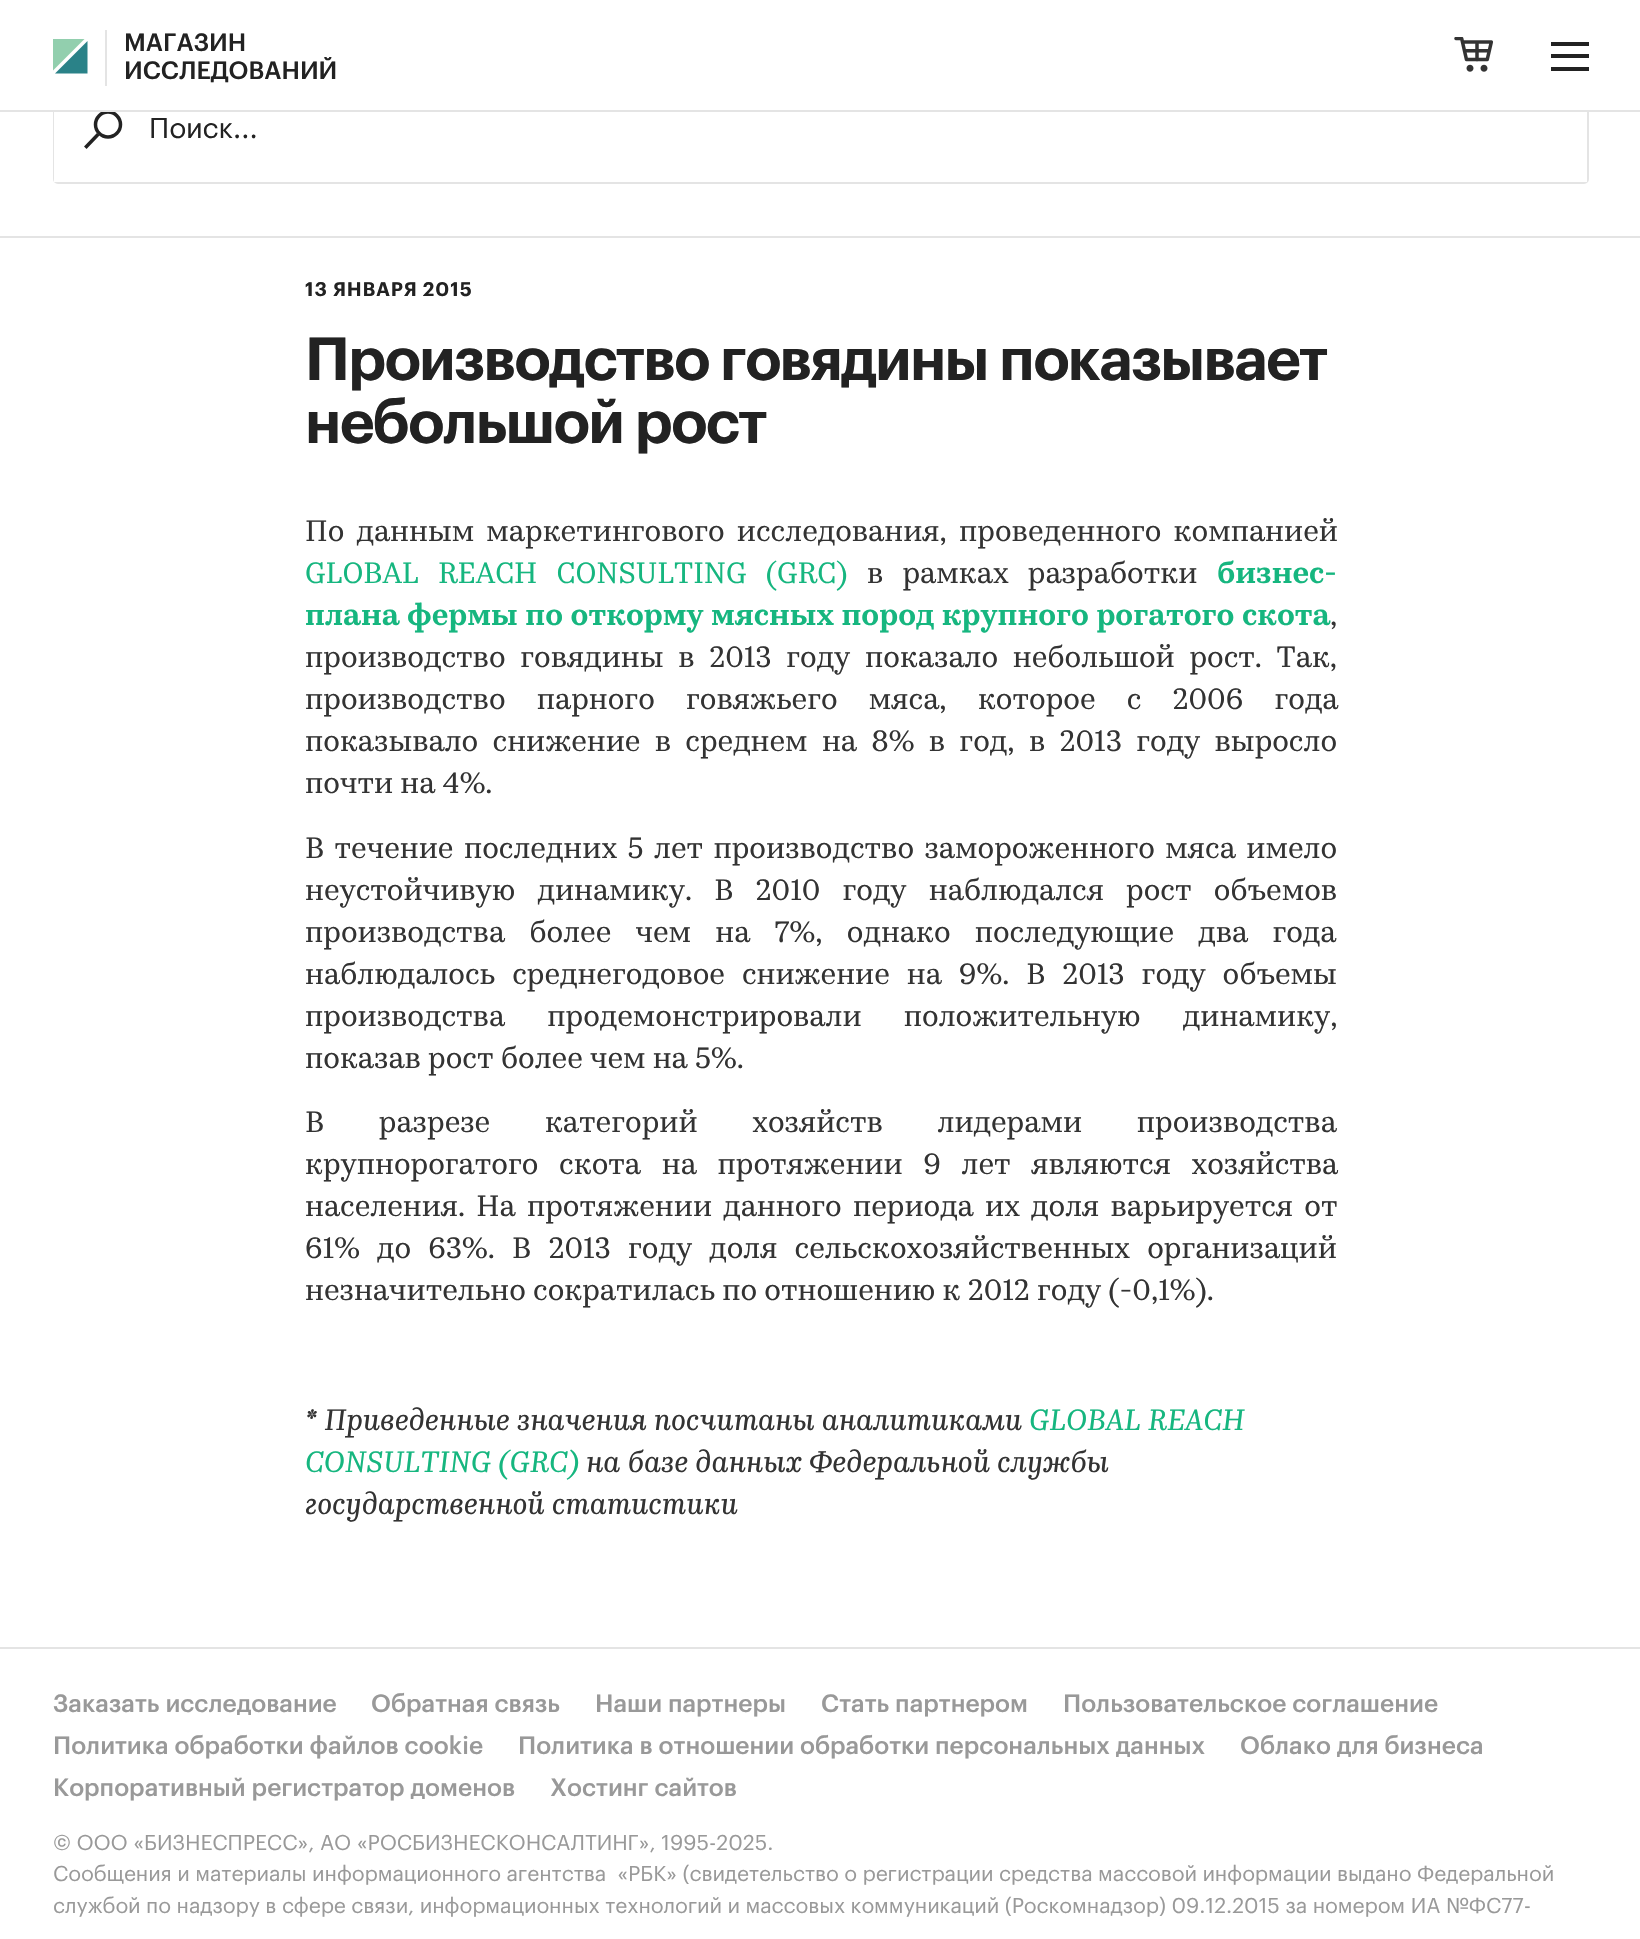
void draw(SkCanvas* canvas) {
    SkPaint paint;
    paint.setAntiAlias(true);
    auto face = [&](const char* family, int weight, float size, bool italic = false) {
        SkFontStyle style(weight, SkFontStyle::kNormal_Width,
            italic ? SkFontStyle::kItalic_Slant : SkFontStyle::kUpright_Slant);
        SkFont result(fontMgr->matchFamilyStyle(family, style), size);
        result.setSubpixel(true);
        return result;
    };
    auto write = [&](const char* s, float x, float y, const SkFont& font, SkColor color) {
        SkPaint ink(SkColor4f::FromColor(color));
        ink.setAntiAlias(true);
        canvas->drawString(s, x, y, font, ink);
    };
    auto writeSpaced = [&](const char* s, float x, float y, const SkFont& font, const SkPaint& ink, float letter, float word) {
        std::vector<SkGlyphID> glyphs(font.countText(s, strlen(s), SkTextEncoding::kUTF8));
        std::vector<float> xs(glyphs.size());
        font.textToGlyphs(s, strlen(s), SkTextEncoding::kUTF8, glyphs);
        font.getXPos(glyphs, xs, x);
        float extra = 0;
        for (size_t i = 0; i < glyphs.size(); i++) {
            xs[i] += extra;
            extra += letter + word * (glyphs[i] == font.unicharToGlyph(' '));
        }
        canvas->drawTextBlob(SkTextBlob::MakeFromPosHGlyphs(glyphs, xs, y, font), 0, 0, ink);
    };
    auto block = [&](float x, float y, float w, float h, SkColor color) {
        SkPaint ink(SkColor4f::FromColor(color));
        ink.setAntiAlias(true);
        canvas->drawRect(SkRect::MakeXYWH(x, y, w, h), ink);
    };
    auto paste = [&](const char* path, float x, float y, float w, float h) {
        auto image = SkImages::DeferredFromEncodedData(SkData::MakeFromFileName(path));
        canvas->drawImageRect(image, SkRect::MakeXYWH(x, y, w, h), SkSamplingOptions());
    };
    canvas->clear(SK_ColorWHITE);
    paint.setStyle(SkPaint::kStroke_Style);
    paint.setStrokeWidth(2);
    paint.setColor(SkColorSetRGB(228, 228, 228));
    canvas->drawRoundRect(SkRect::MakeXYWH(54, 76, 1534, 107), 4, 4, paint);
    block(53, 75, 1536, 35, SK_ColorWHITE);
    block(54, 112, 1533, 70, SK_ColorWHITE);
    paint.setStrokeWidth(3.5f);
    paint.setColor(SkColorSetRGB(34, 34, 34));
    canvas->drawCircle(108, 124.5f, 12.5f, paint);
    block(0, 110, 1640, 2, SkColorSetRGB(228, 228, 228));
    canvas->save();
    canvas->clipRect(SkRect::MakeXYWH(53, 39, 35, 35));
    paint.setStyle(SkPaint::kFill_Style);
    paint.setColor(SkColorSetRGB(146, 207, 174));
    canvas->drawPath(SkPathBuilder(SkPathFillType::kEvenOdd).moveTo(52.5f, 38.5f).lineTo(52.5f, 71).lineTo(85, 38.5f).close().detach(), paint);
    canvas->restore();
    paint.setColor(SkColorSetRGB(42, 130, 136));
    canvas->drawPath(SkPathBuilder(SkPathFillType::kEvenOdd).moveTo(55, 73.5f).lineTo(87.5f, 73.5f).lineTo(87.5f, 41).close().detach(), paint);
    block(105, 30, 2, 56, SkColorSetRGB(228, 228, 228));
    auto kFont1 = face("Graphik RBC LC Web", 500, 24.5f);
    write("МАГАЗИН", 124, 51, kFont1, SkColorSetRGB(34, 34, 34));
    write("ИССЛЕДОВАНИЙ", 124, 79, kFont1, SkColorSetRGB(34, 34, 34));
    paste("pic1.png", 1454, 37, 39, 35);
    block(1551, 42, 38, 4, SkColorSetRGB(34, 34, 34));
    block(1551, 54, 38, 4, SkColorSetRGB(34, 34, 34));
    block(1551, 67, 38, 4, SkColorSetRGB(34, 34, 34));
    block(0, 236, 1640, 2, SkColorSetRGB(228, 228, 228));
    paint.setStyle(SkPaint::kStroke_Style);
    paint.setStrokeCap(SkPaint::kSquare_Cap);
    paint.setColor(SkColorSetRGB(34, 34, 34));
    canvas->drawPath(SkPathBuilder().moveTo(97, 135.5f).lineTo(86.5f, 146.5f).detach(), paint);
    auto kFont2 = face("Graphik RBC LC Web", 400, 28);
    write("Поиск...", 149, 138, kFont2, SkColorSetRGB(34, 34, 34));
    auto kFont3 = face("Graphik RBC LC Web", 600, 19.25f);
    paint.setStyle(SkPaint::kFill_Style);
    writeSpaced("13 ЯНВАРЯ 2015", 305, 296, kFont3, paint, 0.9f, 0);
    auto kFont4 = face("Graphik RBC LC Web", 600, 59.5f);
    writeSpaced("Производство говядины показывает", 305, 380, kFont4, paint, -1.75f, 0);
    writeSpaced("небольшой рост", 305, 443, kFont4, paint, -1.75f, 0);
    auto kFont5 = face("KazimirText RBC", 400, 29.75f);
    paint.setColor(SkColorSetRGB(51, 51, 51));
    writeSpaced("По данным маркетингового исследования, проведенного компанией", 305, 541, kFont5, paint, 0, 5);
    paint.setColor(SkColorSetRGB(22, 182, 127));
    writeSpaced("GLOBAL REACH CONSULTING (GRC)", 305, 583, kFont5, paint, 0, 12);
    paint.setColor(SkColorSetRGB(51, 51, 51));
    writeSpaced("в рамках разработки", 867, 583, kFont5, paint, 0, 12);
    auto kFont6 = face("KazimirText RBC", 600, 29.75f);
    write("бизнес-", 1217, 583, kFont6, SkColorSetRGB(22, 182, 127));
    paint.setColor(SkColorSetRGB(22, 182, 127));
    writeSpaced("плана фермы по откорму мясных пород крупного рогатого скота", 305, 625, kFont6, paint, 0, 0.75f);
    write(",", 1330, 625, kFont5, SkColorSetRGB(51, 51, 51));
    paint.setColor(SkColorSetRGB(51, 51, 51));
    writeSpaced("производство говядины в 2013 году показало небольшой рост. Так,", 305, 667, kFont5, paint, 0, 7.5f);
    writeSpaced("производство парного говяжьего мяса, которое с 2006 года", 305, 709, kFont5, paint, 0, 24);
    writeSpaced("показывало снижение в среднем на 8% в год, в 2013 году выросло", 305, 751, kFont5, paint, 0, 7.1f);
    write("почти на 4%.", 305, 793, kFont5, SkColorSetRGB(51, 51, 51));
    writeSpaced("В течение последних 5 лет производство замороженного мяса имело", 305, 858, kFont5, paint, 0, 3.25f);
    writeSpaced("неустойчивую динамику. В 2010 году наблюдался рост объемов", 305, 900, kFont5, paint, 0, 15);
    writeSpaced("производства более чем на 7%, однако последующие два года", 305, 942, kFont5, paint, 0, 17);
    writeSpaced("наблюдалось среднегодовое снижение на 9%. В 2013 году объемы", 305, 984, kFont5, paint, 0, 9.75f);
    writeSpaced("производства продемонстрировали положительную динамику,", 305, 1026, kFont5, paint, 0, 35);
    write("показав рост более чем на 5%.", 305, 1068, kFont5, SkColorSetRGB(51, 51, 51));
    writeSpaced("В разрезе категорий хозяйств лидерами производства", 305, 1132, kFont5, paint, 0, 47.5f);
    writeSpaced("крупнорогатого скота на протяжении 9 лет являются хозяйства", 305, 1174, kFont5, paint, 0, 13.5f);
    writeSpaced("населения. На протяжении данного периода их доля варьируется от", 305, 1216, kFont5, paint, 0, 4);
    writeSpaced("61% до 63%. В 2013 году доля сельскохозяйственных организаций", 305, 1258, kFont5, paint, 0, 10);
    write("незначительно сократилась по отношению к 2012 году (-0,1%).", 305, 1300, kFont5, SkColorSetRGB(51, 51, 51));
    auto kFont7 = face("KazimirText RBC", 400, 29.75f, true);
    write("* Приведенные значения посчитаны аналитиками", 305, 1430, kFont7, SkColorSetRGB(51, 51, 51));
    write("GLOBAL REACH", 1029, 1430, kFont7, SkColorSetRGB(22, 182, 127));
    write("CONSULTING (GRC)", 305, 1472, kFont7, SkColorSetRGB(22, 182, 127));
    write("на базе данных Федеральной службы", 586, 1472, kFont7, SkColorSetRGB(51, 51, 51));
    write("государственной статистики", 305, 1514, kFont7, SkColorSetRGB(51, 51, 51));
    block(0, 1647, 1640, 2, SkColorSetRGB(228, 228, 228));
    write("Заказать исследование", 53, 1712, kFont1, SkColorSetRGB(153, 153, 153));
    write("Обратная связь", 371, 1712, kFont1, SkColorSetRGB(153, 153, 153));
    write("Наши партнеры", 595, 1712, kFont1, SkColorSetRGB(153, 153, 153));
    write("Стать партнером", 821, 1712, kFont1, SkColorSetRGB(153, 153, 153));
    write("Пользовательское соглашение", 1063, 1712, kFont1, SkColorSetRGB(153, 153, 153));
    write("Политика обработки файлов cookie", 53, 1754, kFont1, SkColorSetRGB(153, 153, 153));
    write("Политика в отношении обработки персональных данных", 518, 1754, kFont1, SkColorSetRGB(153, 153, 153));
    write("Облако для бизнеса", 1240, 1754, kFont1, SkColorSetRGB(153, 153, 153));
    write("Корпоративный регистратор доменов", 53, 1796, kFont1, SkColorSetRGB(153, 153, 153));
    write("Хостинг сайтов", 550, 1796, kFont1, SkColorSetRGB(153, 153, 153));
    auto kFont8 = face("Graphik RBC LC Web", 400, 21);
    write("© ООО «БИЗНЕСПРЕСС», АО «РОСБИЗНЕСКОНСАЛТИНГ», 1995-2025.", 53, 1850, kFont8, SkColorSetRGB(153, 153, 153));
    write("Сообщения и материалы информационного агентства  «РБК» (свидетельство о регистрации средства массовой информации выдано Федеральной", 53, 1881, kFont8, SkColorSetRGB(153, 153, 153));
    write("службой по надзору в сфере связи, информационных технологий и массовых коммуникаций (Роскомнадзор) 09.12.2015 за номером ИА №ФС77-", 53, 1913, kFont8, SkColorSetRGB(153, 153, 153));
}
